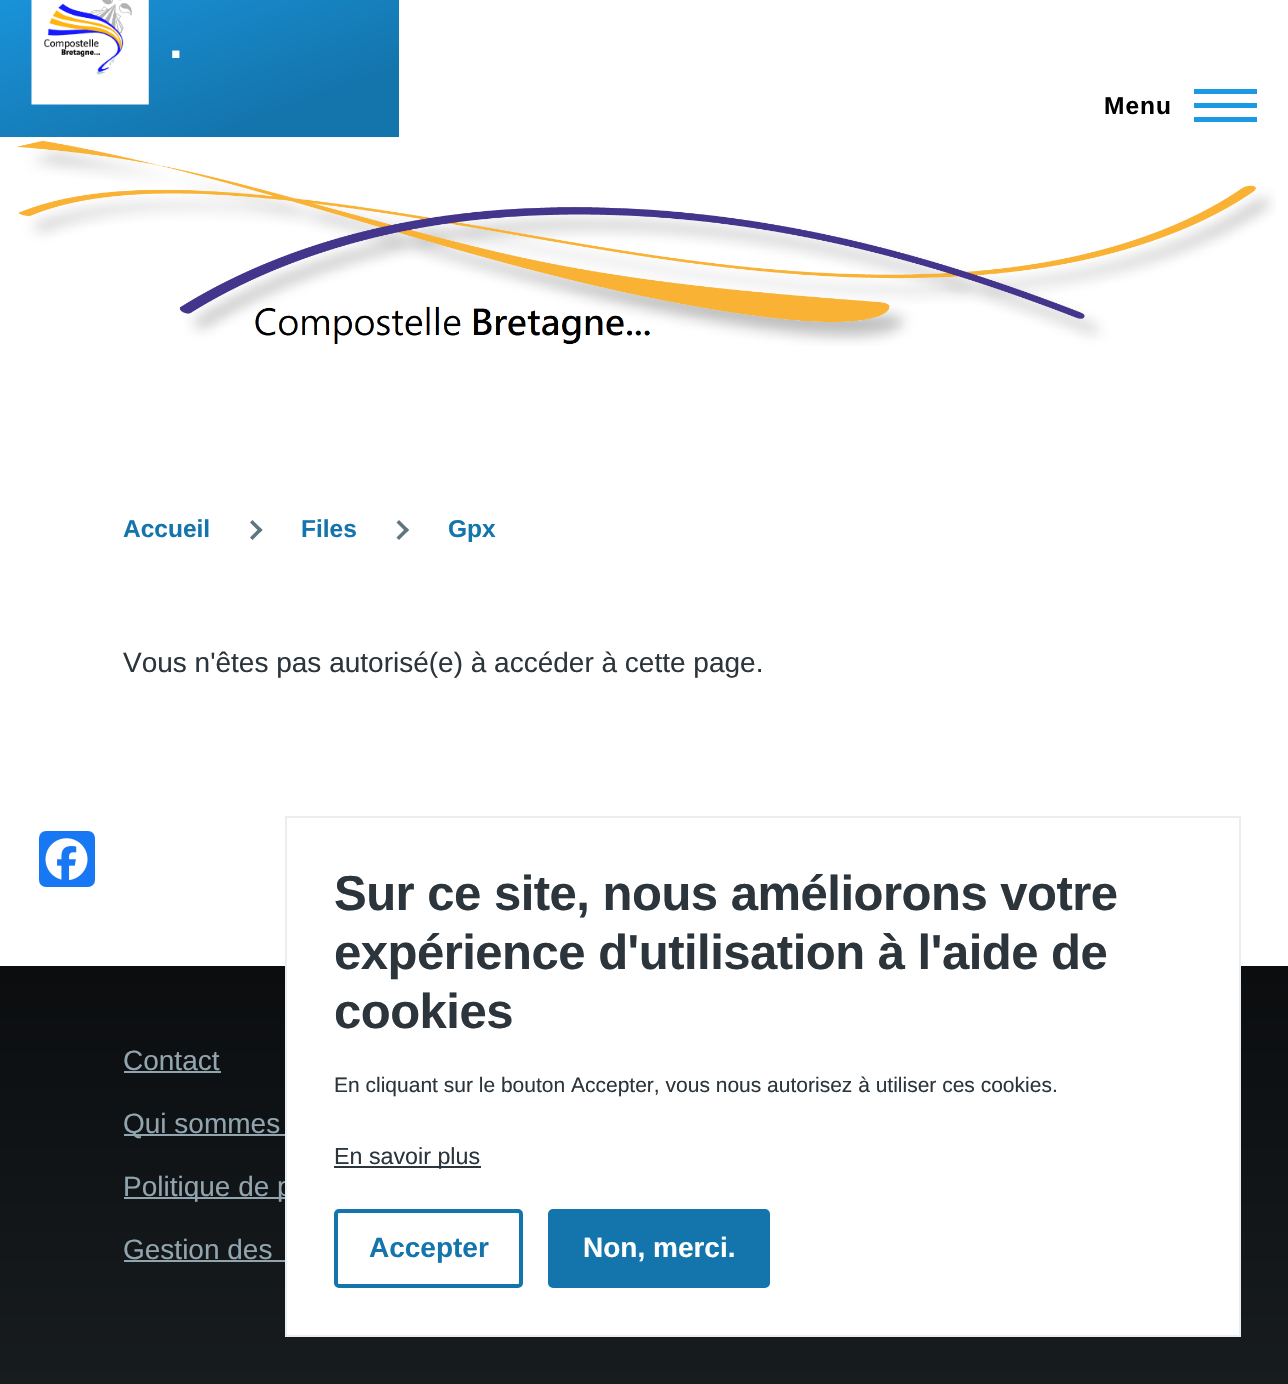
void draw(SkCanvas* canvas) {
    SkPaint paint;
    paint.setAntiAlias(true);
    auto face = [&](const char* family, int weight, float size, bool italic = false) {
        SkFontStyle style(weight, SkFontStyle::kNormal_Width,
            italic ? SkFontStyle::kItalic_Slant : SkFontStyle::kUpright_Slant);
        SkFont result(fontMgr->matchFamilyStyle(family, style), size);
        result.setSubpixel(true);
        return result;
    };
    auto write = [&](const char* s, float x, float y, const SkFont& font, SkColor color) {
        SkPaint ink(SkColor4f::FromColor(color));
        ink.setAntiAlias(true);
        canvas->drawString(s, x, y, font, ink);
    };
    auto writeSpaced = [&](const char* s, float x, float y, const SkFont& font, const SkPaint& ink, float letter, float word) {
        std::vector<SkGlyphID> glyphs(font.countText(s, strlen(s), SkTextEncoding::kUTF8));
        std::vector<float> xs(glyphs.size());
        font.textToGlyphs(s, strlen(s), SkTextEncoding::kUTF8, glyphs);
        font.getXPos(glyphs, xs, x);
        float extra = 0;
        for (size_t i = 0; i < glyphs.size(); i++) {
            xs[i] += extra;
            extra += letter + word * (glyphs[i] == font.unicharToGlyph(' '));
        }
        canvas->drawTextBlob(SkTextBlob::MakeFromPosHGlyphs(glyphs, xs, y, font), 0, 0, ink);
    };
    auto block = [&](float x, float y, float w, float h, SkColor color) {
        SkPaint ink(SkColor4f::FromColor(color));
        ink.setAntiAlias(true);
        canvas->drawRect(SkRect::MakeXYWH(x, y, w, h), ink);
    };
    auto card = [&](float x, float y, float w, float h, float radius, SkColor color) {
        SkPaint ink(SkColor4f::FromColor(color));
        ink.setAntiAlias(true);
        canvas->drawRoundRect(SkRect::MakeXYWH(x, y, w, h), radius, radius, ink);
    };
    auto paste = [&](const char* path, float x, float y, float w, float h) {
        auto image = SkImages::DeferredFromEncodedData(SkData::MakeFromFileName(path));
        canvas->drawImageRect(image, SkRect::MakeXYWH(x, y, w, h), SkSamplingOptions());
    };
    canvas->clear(SK_ColorWHITE);
    {
        const SkColor colors[] = {SkColorSetRGB(27, 154, 228), SkColorSetRGB(20, 117, 173)};
        const float stops[] = {0, 0.79f};
        const SkPoint ends[] = {{146, -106}, {253, 190}};
        paint.setShader(SkGradientShader::MakeLinear(ends, colors, stops, 2, SkTileMode::kClamp));
        paint.setAlpha(255);
    }
    canvas->drawRect(SkRect::MakeXYWH(0, 0, 399, 137), paint);
    paste("pic1.png", 31, 0, 118, 105);
    auto kFont1 = face("Liberation Sans", 700, 49);
    write(".", 169, 58, kFont1, SK_ColorWHITE);
    auto kFont2 = face("Liberation Sans", 700, 24.5f);
    paint.setShader(nullptr);
    paint.setColor(SK_ColorBLACK);
    writeSpaced("Menu", 1104, 114, kFont2, paint, 1, 0);
    block(1194, 103, 63, 5, SkColorSetRGB(27, 154, 228));
    block(1194, 89, 63, 5, SkColorSetRGB(27, 154, 228));
    block(1194, 117, 63, 5, SkColorSetRGB(27, 154, 228));
    paste("pic2.png", 17, 140, 1259, 206);
    write("Accueil", 123, 537, kFont2, SkColorSetRGB(20, 117, 173));
    paint.setColor(SkColorSetRGB(95, 117, 129));
    canvas->drawPath(SkPathBuilder().moveTo(252.5f, 520).lineTo(262.5f, 530).lineTo(260, 532.5f).lineTo(250, 522.5f).close().detach(), paint);
    canvas->drawPath(SkPathBuilder().moveTo(260, 527.5f).lineTo(262.5f, 530).lineTo(252.5f, 540).lineTo(250, 537.5f).close().detach(), paint);
    write("Files", 301, 537, kFont2, SkColorSetRGB(20, 117, 173));
    canvas->drawPath(SkPathBuilder().moveTo(399, 520).lineTo(409, 530).lineTo(406.5f, 532.5f).lineTo(396.5f, 522.5f).close().detach(), paint);
    canvas->drawPath(SkPathBuilder().moveTo(406.5f, 527.5f).lineTo(409, 530).lineTo(399, 540).lineTo(396.5f, 537.5f).close().detach(), paint);
    write("Gpx", 448, 537, kFont2, SkColorSetRGB(20, 117, 173));
    auto kFont3 = face("Liberation Sans", 400, 28);
    write("Vous n'êtes pas autorisé(e) à accéder à cette page.", 123, 672, kFont3, SkColorSetRGB(43, 53, 59));
    card(39, 831, 56, 56, 7, SkColorSetRGB(24, 119, 242));
    paste("pic3.png", 45, 838, 43, 43);
    {
        const SkColor colors[] = {SkColorSetRGB(11, 13, 15), SkColorSetRGB(24, 29, 32)};
        const float stops[] = {0, 1};
        const SkPoint ends[] = {{644, 966}, {644, 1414}};
        paint.setShader(SkGradientShader::MakeLinear(ends, colors, stops, 2, SkTileMode::kClamp));
        paint.setAlpha(255);
    }
    canvas->drawRect(SkRect::MakeXYWH(0, 966, 1288, 418), paint);
    write("Contact", 123, 1070, kFont3, SkColorSetRGB(146, 165, 175));
    block(124, 1071, 97, 2, SkColorSetRGB(146, 165, 175));
    block(124, 1134, 161, 2, SkColorSetRGB(146, 165, 175));
    write("Qui sommes", 123, 1133, kFont3, SkColorSetRGB(146, 165, 175));
    block(124, 1197, 161, 2, SkColorSetRGB(146, 165, 175));
    write("Politique de p", 123, 1196, kFont3, SkColorSetRGB(146, 165, 175));
    write("Gestion des", 123, 1259, kFont3, SkColorSetRGB(146, 165, 175));
    block(124, 1260, 161, 2, SkColorSetRGB(146, 165, 175));
    block(287, 966, 952, 369, SK_ColorWHITE);
    paint.setStyle(SkPaint::kStroke_Style);
    paint.setStrokeWidth(2);
    paint.setShader(nullptr);
    paint.setColor(SkColorSetRGB(234, 238, 240));
    canvas->drawRect(SkRect::MakeXYWH(286, 817, 954, 519), paint);
    paint.setStyle(SkPaint::kFill_Style);
    paint.setColor(SkColorSetRGB(43, 53, 59));
    writeSpaced("Sur ce site, nous améliorons votre", 334, 910, kFont1, paint, -0.5f, 0);
    writeSpaced("expérience d'utilisation à l'aide de", 334, 969, kFont1, paint, -0.5f, 0);
    writeSpaced("cookies", 334, 1028, kFont1, paint, -0.5f, 0);
    auto kFont4 = face("Liberation Sans", 400, 21);
    write("En cliquant sur le bouton Accepter, vous nous autorisez à utiliser ces cookies.", 334, 1092, kFont4, SkColorSetRGB(43, 53, 59));
    block(334, 1166, 147, 2, SkColorSetRGB(43, 53, 59));
    auto kFont5 = face("Liberation Sans", 400, 23.25f);
    write("En savoir plus", 334, 1164, kFont5, SkColorSetRGB(43, 53, 59));
    paint.setStyle(SkPaint::kStroke_Style);
    paint.setStrokeWidth(4);
    paint.setColor(SkColorSetRGB(20, 117, 173));
    canvas->drawRoundRect(SkRect::MakeXYWH(336, 1211, 185, 75), 3, 3, paint);
    auto kFont6 = face("Liberation Sans", 700, 28);
    write("Accepter", 369, 1257, kFont6, SkColorSetRGB(20, 117, 173));
    paint.setStyle(SkPaint::kFill_Style);
    canvas->drawRoundRect(SkRect::MakeXYWH(550, 1211, 218, 75), 3, 3, paint);
    paint.setStyle(SkPaint::kStroke_Style);
    canvas->drawRoundRect(SkRect::MakeXYWH(550, 1211, 218, 75), 3, 3, paint);
    write("Non, merci.", 583, 1257, kFont6, SK_ColorWHITE);
}
